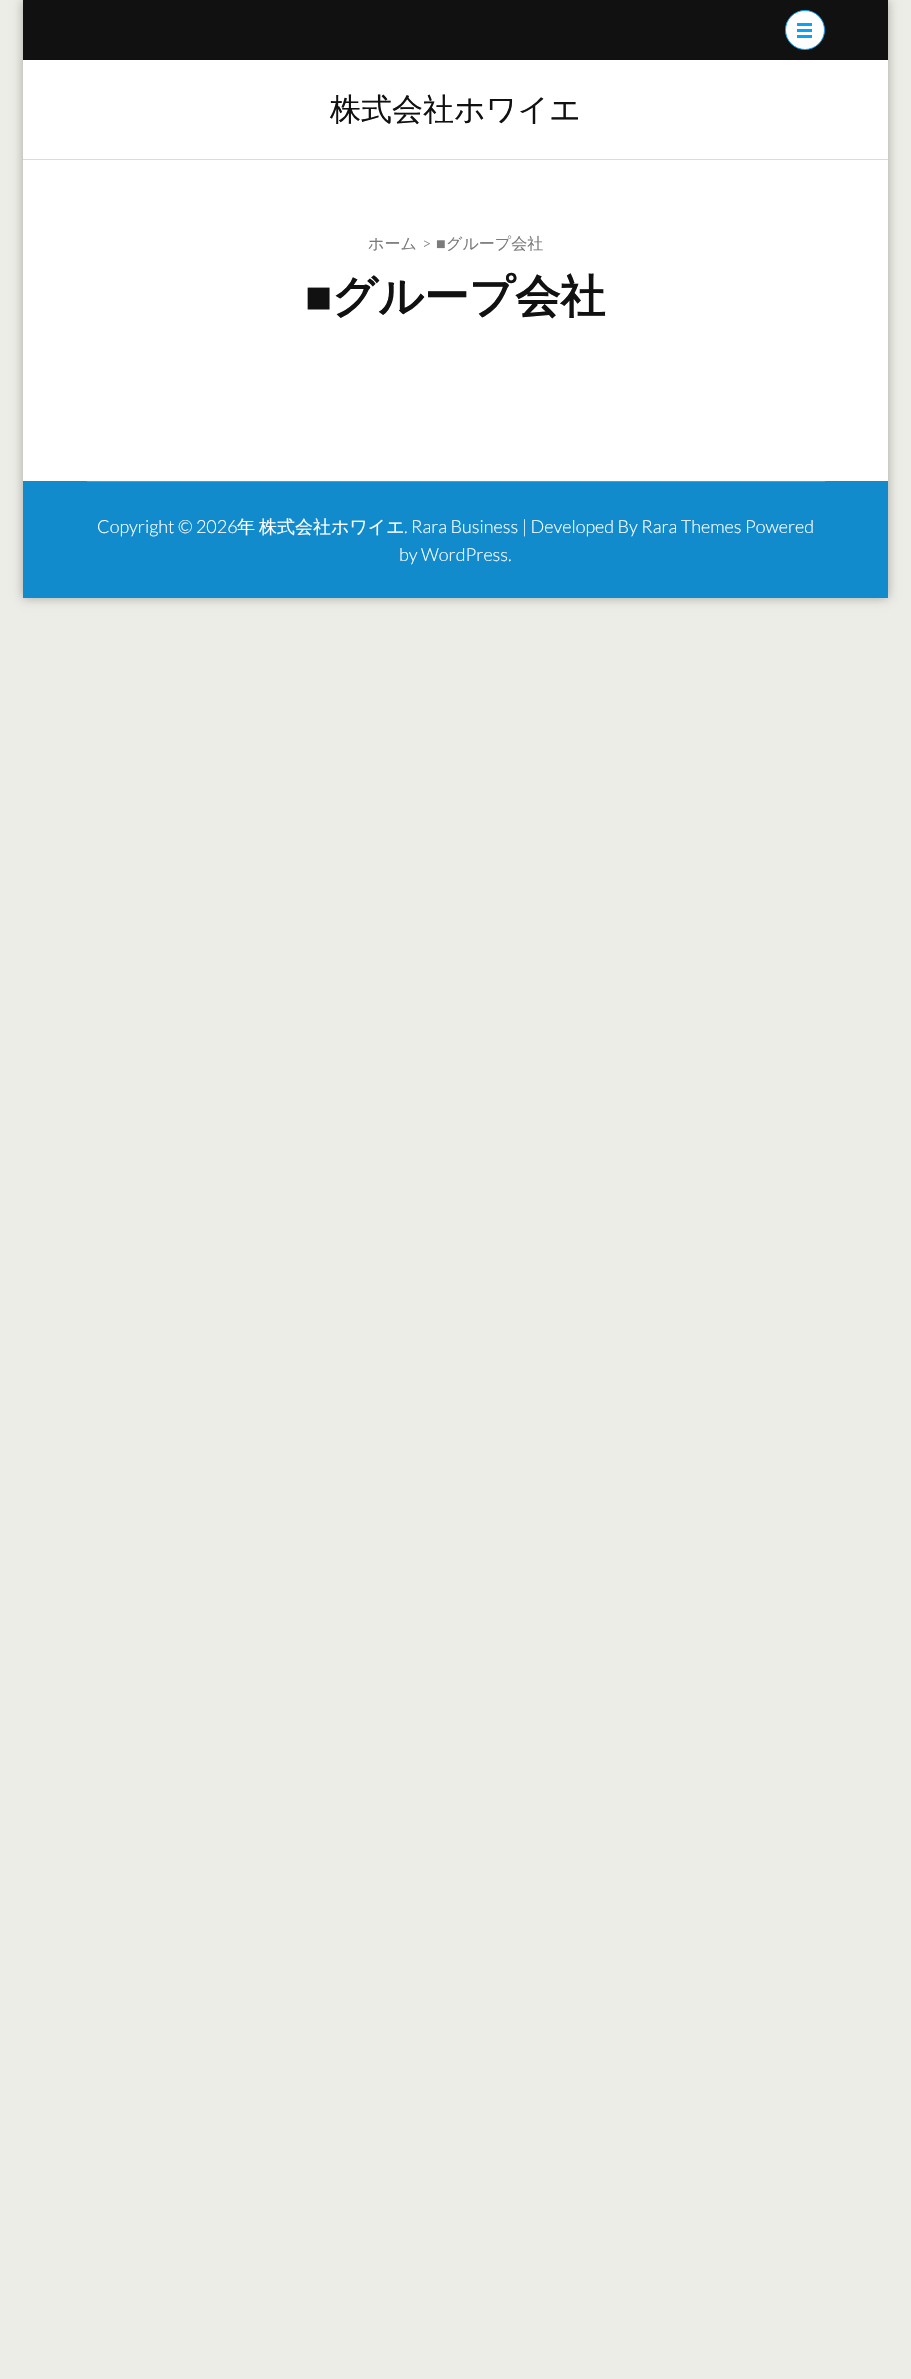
void draw(SkCanvas* canvas) {
    SkPaint paint;
    paint.setAntiAlias(true);
    auto face = [&](const char* family, int weight, float size, bool italic = false) {
        SkFontStyle style(weight, SkFontStyle::kNormal_Width,
            italic ? SkFontStyle::kItalic_Slant : SkFontStyle::kUpright_Slant);
        SkFont result(fontMgr->matchFamilyStyle(family, style), size);
        result.setSubpixel(true);
        return result;
    };
    auto write = [&](const char* s, float x, float y, const SkFont& font, SkColor color) {
        SkPaint ink(SkColor4f::FromColor(color));
        ink.setAntiAlias(true);
        canvas->drawString(s, x, y, font, ink);
    };
    auto block = [&](float x, float y, float w, float h, SkColor color) {
        SkPaint ink(SkColor4f::FromColor(color));
        ink.setAntiAlias(true);
        canvas->drawRect(SkRect::MakeXYWH(x, y, w, h), ink);
    };
    canvas->clear(SkColorSetRGB(237, 237, 232));
    paint.setColor(SkColorSetARGB(77, 0, 0, 0));
    paint.setMaskFilter(SkMaskFilter::MakeBlur(kNormal_SkBlurStyle, 5));
    canvas->drawRect(SkRect::MakeXYWH(23, 0, 865, 598), paint);
    paint.setMaskFilter(nullptr);
    block(23, 60, 865, 421, SK_ColorWHITE);
    block(23, 0, 865, 60, SkColorSetRGB(17, 17, 17));
    paint.setColor(SK_ColorWHITE);
    canvas->drawCircle(805, 30, 19.5f, paint);
    paint.setStyle(SkPaint::kStroke_Style);
    paint.setStrokeWidth(1);
    paint.setColor(SkColorSetRGB(10, 163, 243));
    canvas->drawCircle(805, 30, 19.5f, paint);
    block(797, 23, 15, 3, SkColorSetRGB(10, 163, 243));
    block(797, 29, 15, 3, SkColorSetRGB(10, 163, 243));
    block(797, 35, 15, 3, SkColorSetRGB(10, 163, 243));
    block(23, 159, 865, 1, SkColorSetRGB(219, 219, 219));
    auto kFont1 = face("WenQuanYi Zen Hei", 500, 31);
    write("株式会社ホワイエ", 330, 120, kFont1, SkColorSetRGB(17, 17, 17));
    auto kFont2 = face("WenQuanYi Zen Hei", 500, 16);
    write("ホーム", 368, 249, kFont2, SkColorSetRGB(123, 123, 123));
    auto kFont3 = face("Lato", 300, 16);
    write(">", 422, 249, kFont3, SkColorSetRGB(123, 123, 123));
    auto kFont4 = face("Liberation Sans", 400, 16);
    write("■", 436, 249, kFont4, SkColorSetRGB(123, 123, 123));
    write("グループ会社", 446, 249, kFont2, SkColorSetRGB(123, 123, 123));
    auto kFont5 = face("Liberation Sans", 700, 45);
    write("■", 305, 312, kFont5, SkColorSetRGB(17, 17, 17));
    auto kFont6 = face("WenQuanYi Zen Hei", 700, 45);
    write("グループ会社", 332, 312, kFont6, SkColorSetRGB(17, 17, 17));
    block(23, 481, 865, 117, SkColorSetRGB(17, 139, 203));
    block(87, 481, 738, 1, SkColorSetRGB(65, 162, 213));
    auto kFont7 = face("Lato", 300, 18);
    write("Copyright © 2026", 97, 533, kFont7, SK_ColorWHITE);
    auto kFont8 = face("WenQuanYi Zen Hei", 500, 18);
    write("年", 237, 533, kFont8, SK_ColorWHITE);
    write("株式会社ホワイエ", 259, 533, kFont8, SK_ColorWHITE);
    write(". Rara Business | Developed By Rara Themes Powered", 404, 533, kFont7, SK_ColorWHITE);
    write("by WordPress.", 399, 561, kFont7, SK_ColorWHITE);
}
